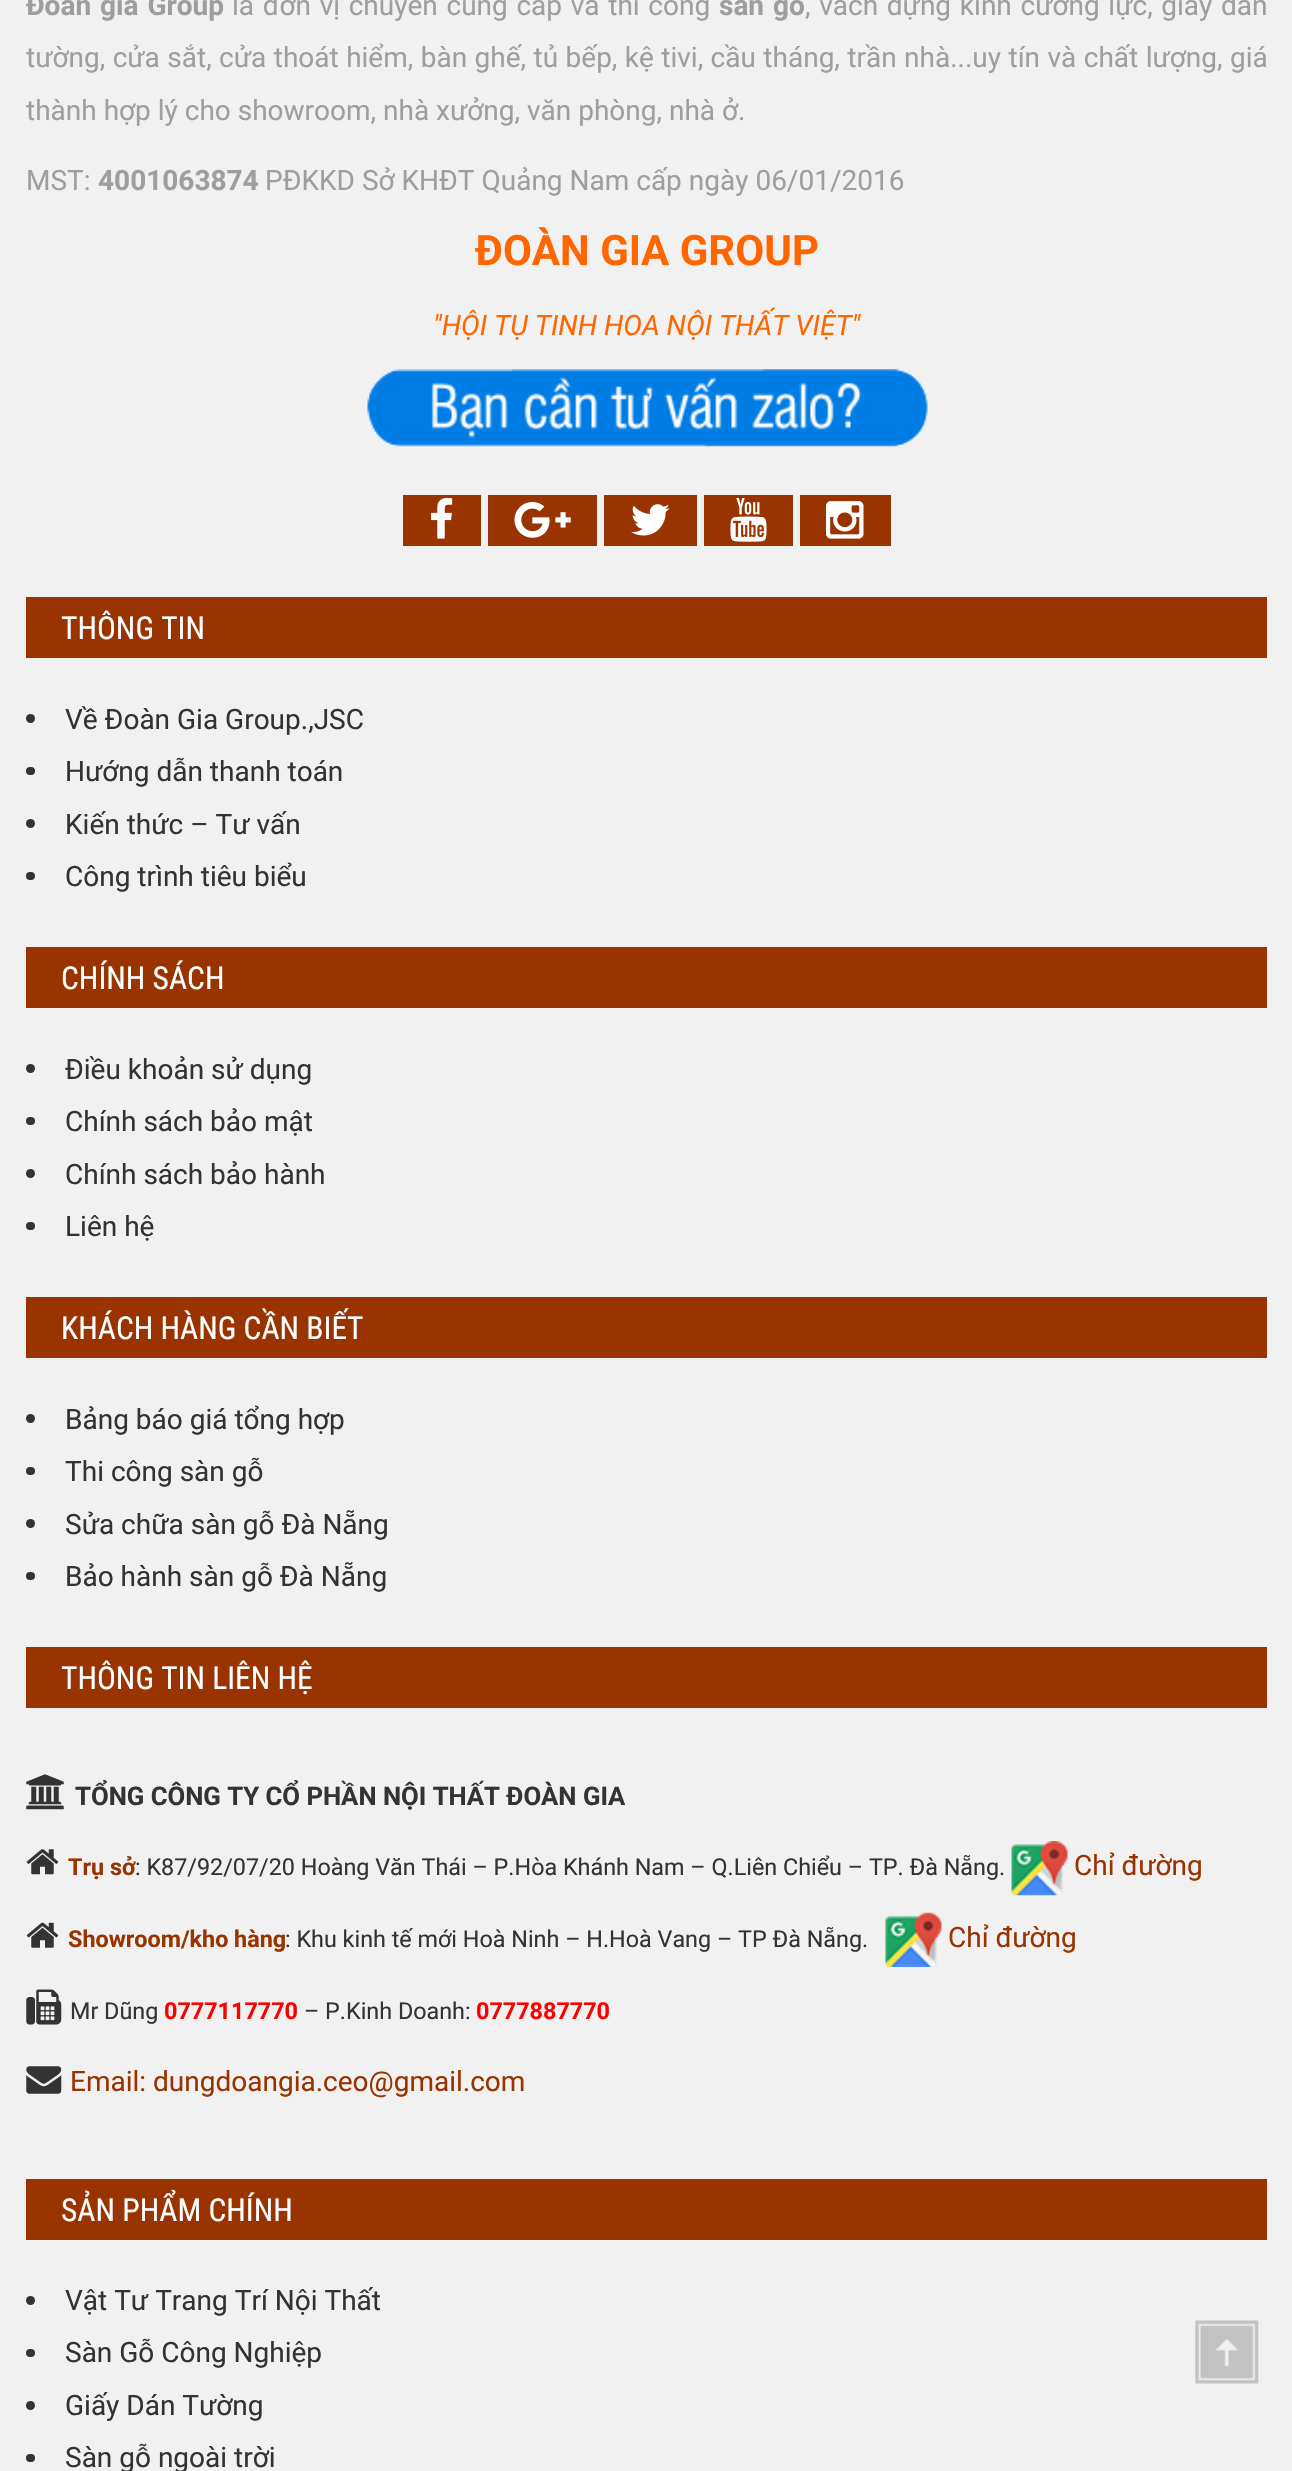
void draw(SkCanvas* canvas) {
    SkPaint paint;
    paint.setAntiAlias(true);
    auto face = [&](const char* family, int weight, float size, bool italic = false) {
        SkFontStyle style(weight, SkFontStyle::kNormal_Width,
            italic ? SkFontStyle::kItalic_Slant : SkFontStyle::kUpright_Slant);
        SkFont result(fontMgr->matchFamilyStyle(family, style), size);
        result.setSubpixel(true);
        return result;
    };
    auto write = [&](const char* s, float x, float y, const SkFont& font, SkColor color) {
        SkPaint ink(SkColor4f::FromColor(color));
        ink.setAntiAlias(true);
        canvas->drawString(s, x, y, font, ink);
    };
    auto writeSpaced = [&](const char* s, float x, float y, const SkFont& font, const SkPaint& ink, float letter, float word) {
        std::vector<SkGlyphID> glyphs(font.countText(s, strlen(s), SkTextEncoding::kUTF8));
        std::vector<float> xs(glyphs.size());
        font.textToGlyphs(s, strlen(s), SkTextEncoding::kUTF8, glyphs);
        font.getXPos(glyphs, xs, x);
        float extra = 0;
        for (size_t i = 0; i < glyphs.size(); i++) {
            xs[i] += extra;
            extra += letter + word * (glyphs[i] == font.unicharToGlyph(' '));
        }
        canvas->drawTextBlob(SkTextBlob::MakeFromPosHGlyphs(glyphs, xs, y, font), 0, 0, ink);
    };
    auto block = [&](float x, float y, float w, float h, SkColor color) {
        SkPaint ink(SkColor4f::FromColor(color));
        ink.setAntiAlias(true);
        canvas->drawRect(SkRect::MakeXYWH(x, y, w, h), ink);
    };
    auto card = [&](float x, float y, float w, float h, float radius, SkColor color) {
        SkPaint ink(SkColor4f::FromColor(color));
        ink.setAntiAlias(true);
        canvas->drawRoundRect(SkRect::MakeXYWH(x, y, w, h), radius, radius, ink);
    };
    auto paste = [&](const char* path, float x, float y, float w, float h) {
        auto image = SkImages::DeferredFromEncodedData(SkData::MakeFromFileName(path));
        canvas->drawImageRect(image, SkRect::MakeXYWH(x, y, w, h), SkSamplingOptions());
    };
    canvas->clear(SkColorSetRGB(241, 241, 241));
    auto kFont1 = face("Roboto", 700, 28);
    paint.setColor(SkColorSetRGB(158, 158, 158));
    writeSpaced("Đoàn gia Group", 26, 15, kFont1, paint, 0, 2);
    auto kFont2 = face("Roboto", 400, 28);
    writeSpaced("là đơn vị chuyên cung cấp và thi công", 232, 15, kFont2, paint, 0, 1.75f);
    writeSpaced("sàn gỗ", 719, 15, kFont1, paint, 0, 2);
    writeSpaced(", vách dựng kính cường lực, giấy dán", 805, 15, kFont2, paint, 0, 1.75f);
    writeSpaced("tường, cửa sắt, cửa thoát hiểm, bàn ghế, tủ bếp, kệ tivi, cầu tháng, trần nhà...uy tín và chất lượng, giá", 26, 67, kFont2, paint, 0, 0.5f);
    write("thành hợp lý cho showroom, nhà xưởng, văn phòng, nhà ở.", 26, 120, kFont2, SkColorSetRGB(158, 158, 158));
    write("MST:", 26, 190, kFont2, SkColorSetRGB(158, 158, 158));
    write("4001063874", 98, 190, kFont1, SkColorSetRGB(158, 158, 158));
    write("PĐKKD Sở KHĐT Quảng Nam cấp ngày 06/01/2016", 265, 190, kFont2, SkColorSetRGB(158, 158, 158));
    auto kFont3 = face("Roboto", 700, 42);
    write("ĐOÀN GIA GROUP", 475, 265, kFont3, SkColorSetRGB(255, 102, 0));
    auto kFont4 = face("Roboto", 400, 28, true);
    write("\"HỘI TỤ TINH HOA NỘI THẤT VIỆT\"", 433, 335, kFont4, SkColorSetRGB(255, 102, 0));
    paste("pic1.png", 367, 369, 561, 78);
    block(403, 495, 78, 51, SkColorSetRGB(153, 51, 0));
    paste("pic2.png", 431, 498, 22, 41);
    block(488, 495, 109, 51, SkColorSetRGB(153, 51, 0));
    paste("pic3.png", 514, 502, 57, 36);
    block(604, 495, 93, 51, SkColorSetRGB(153, 51, 0));
    paste("pic4.png", 631, 504, 39, 32);
    block(704, 495, 89, 51, SkColorSetRGB(153, 51, 0));
    paste("pic5.png", 730, 498, 37, 44);
    block(800, 495, 91, 51, SkColorSetRGB(153, 51, 0));
    paste("pic6.png", 826, 501, 38, 38);
    block(26, 597, 1241, 61, SkColorSetRGB(153, 51, 0));
    auto kFont5 = face("Roboto Condensed", 400, 31.5f);
    write("THÔNG TIN", 61, 639, kFont5, SK_ColorWHITE);
    paint.setColor(SkColorSetRGB(51, 51, 51));
    canvas->drawCircle(30.5f, 718.5f, 4.5f, paint);
    write("Về Đoàn Gia Group.,JSC", 65, 729, kFont2, SkColorSetRGB(51, 51, 51));
    card(26, 767, 9, 8, 4, SkColorSetRGB(51, 51, 51));
    write("Hướng dẫn thanh toán", 65, 781, kFont2, SkColorSetRGB(51, 51, 51));
    canvas->drawCircle(30.5f, 823.5f, 4.5f, paint);
    write("Kiến thức – Tư vấn", 65, 834, kFont2, SkColorSetRGB(51, 51, 51));
    card(26, 872, 9, 8, 4, SkColorSetRGB(51, 51, 51));
    write("Công trình tiêu biểu", 65, 886, kFont2, SkColorSetRGB(51, 51, 51));
    block(26, 947, 1241, 61, SkColorSetRGB(153, 51, 0));
    write("CHÍNH SÁCH", 61, 989, kFont5, SK_ColorWHITE);
    canvas->drawCircle(30.5f, 1068.5f, 4.5f, paint);
    write("Điều khoản sử dụng", 65, 1079, kFont2, SkColorSetRGB(51, 51, 51));
    card(26, 1117, 9, 8, 4, SkColorSetRGB(51, 51, 51));
    write("Chính sách bảo mật", 65, 1131, kFont2, SkColorSetRGB(51, 51, 51));
    canvas->drawCircle(30.5f, 1173.5f, 4.5f, paint);
    write("Chính sách bảo hành", 65, 1184, kFont2, SkColorSetRGB(51, 51, 51));
    card(26, 1222, 9, 8, 4, SkColorSetRGB(51, 51, 51));
    write("Liên hệ", 65, 1236, kFont2, SkColorSetRGB(51, 51, 51));
    block(26, 1297, 1241, 61, SkColorSetRGB(153, 51, 0));
    write("KHÁCH HÀNG CẦN BIẾT", 61, 1339, kFont5, SK_ColorWHITE);
    canvas->drawCircle(30.5f, 1418.5f, 4.5f, paint);
    write("Bảng báo giá tổng hợp", 65, 1429, kFont2, SkColorSetRGB(51, 51, 51));
    card(26, 1467, 9, 8, 4, SkColorSetRGB(51, 51, 51));
    write("Thi công sàn gỗ", 65, 1481, kFont2, SkColorSetRGB(51, 51, 51));
    canvas->drawCircle(30.5f, 1523.5f, 4.5f, paint);
    write("Sửa chữa sàn gỗ Đà Nẵng", 65, 1534, kFont2, SkColorSetRGB(51, 51, 51));
    card(26, 1572, 9, 8, 4, SkColorSetRGB(51, 51, 51));
    write("Bảo hành sàn gỗ Đà Nẵng", 65, 1586, kFont2, SkColorSetRGB(51, 51, 51));
    block(26, 1647, 1241, 61, SkColorSetRGB(153, 51, 0));
    write("THÔNG TIN LIÊN HỆ", 61, 1689, kFont5, SK_ColorWHITE);
    paste("pic7.png", 26, 1774, 38, 36);
    auto kFont6 = face("Roboto", 700, 25.7f);
    write("TỔNG CÔNG TY CỔ PHẦN NỘI THẤT ĐOÀN GIA", 75, 1805, kFont6, SkColorSetRGB(51, 51, 51));
    paste("pic8.png", 26, 1849, 33, 26);
    auto kFont7 = face("Roboto", 700, 23.35f);
    write("Trụ sở", 68, 1875, kFont7, SkColorSetRGB(153, 51, 0));
    auto kFont8 = face("Roboto", 400, 23.35f);
    write(": K87/92/07/20 Hoàng Văn Thái – P.Hòa Khánh Nam – Q.Liên Chiểu – TP. Đà Nẵng.", 135, 1875, kFont8, SkColorSetRGB(51, 51, 51));
    paste("pic9.png", 1011, 1841, 57, 55);
    write("Chỉ đường", 1074, 1875, kFont2, SkColorSetRGB(153, 51, 0));
    paste("pic10.png", 26, 1922, 33, 26);
    write("Showroom/kho hàng", 68, 1947, kFont7, SkColorSetRGB(153, 51, 0));
    write(": Khu kinh tế mới Hoà Ninh – H.Hoà Vang – TP Đà Nẵng.", 285, 1947, kFont8, SkColorSetRGB(51, 51, 51));
    paste("pic11.png", 885, 1912, 57, 55);
    write("Chỉ đường", 948, 1947, kFont2, SkColorSetRGB(153, 51, 0));
    paste("pic12.png", 26, 1989, 36, 36);
    write("Mr Dũng", 70, 2019, kFont8, SkColorSetRGB(51, 51, 51));
    write("0777117770", 164, 2019, kFont7, SkColorSetRGB(255, 0, 0));
    write("– P.Kinh Doanh:", 304, 2019, kFont8, SkColorSetRGB(51, 51, 51));
    write("0777887770", 476, 2019, kFont7, SkColorSetRGB(255, 0, 0));
    paste("pic13.png", 26, 2066, 36, 28);
    write("Email: dungdoangia.ceo@gmail.com", 70, 2091, kFont2, SkColorSetRGB(153, 51, 0));
    block(26, 2179, 1241, 61, SkColorSetRGB(153, 51, 0));
    write("SẢN PHẨM CHÍNH", 61, 2221, kFont5, SK_ColorWHITE);
    canvas->drawCircle(30.5f, 2300.5f, 4.5f, paint);
    write("Vật Tư Trang Trí Nội Thất", 65, 2310, kFont2, SkColorSetRGB(51, 51, 51));
    card(26, 2349, 9, 8, 4, SkColorSetRGB(51, 51, 51));
    write("Sàn Gỗ Công Nghiệp", 65, 2362, kFont2, SkColorSetRGB(51, 51, 51));
    canvas->drawCircle(30.5f, 2405.5f, 4.5f, paint);
    write("Giấy Dán Tường", 65, 2415, kFont2, SkColorSetRGB(51, 51, 51));
    card(26, 2454, 9, 8, 4, SkColorSetRGB(51, 51, 51));
    write("Sàn gỗ ngoài trời", 65, 2467, kFont2, SkColorSetRGB(51, 51, 51));
    paste("pic14.png", 1195, 2320, 64, 64);
}
